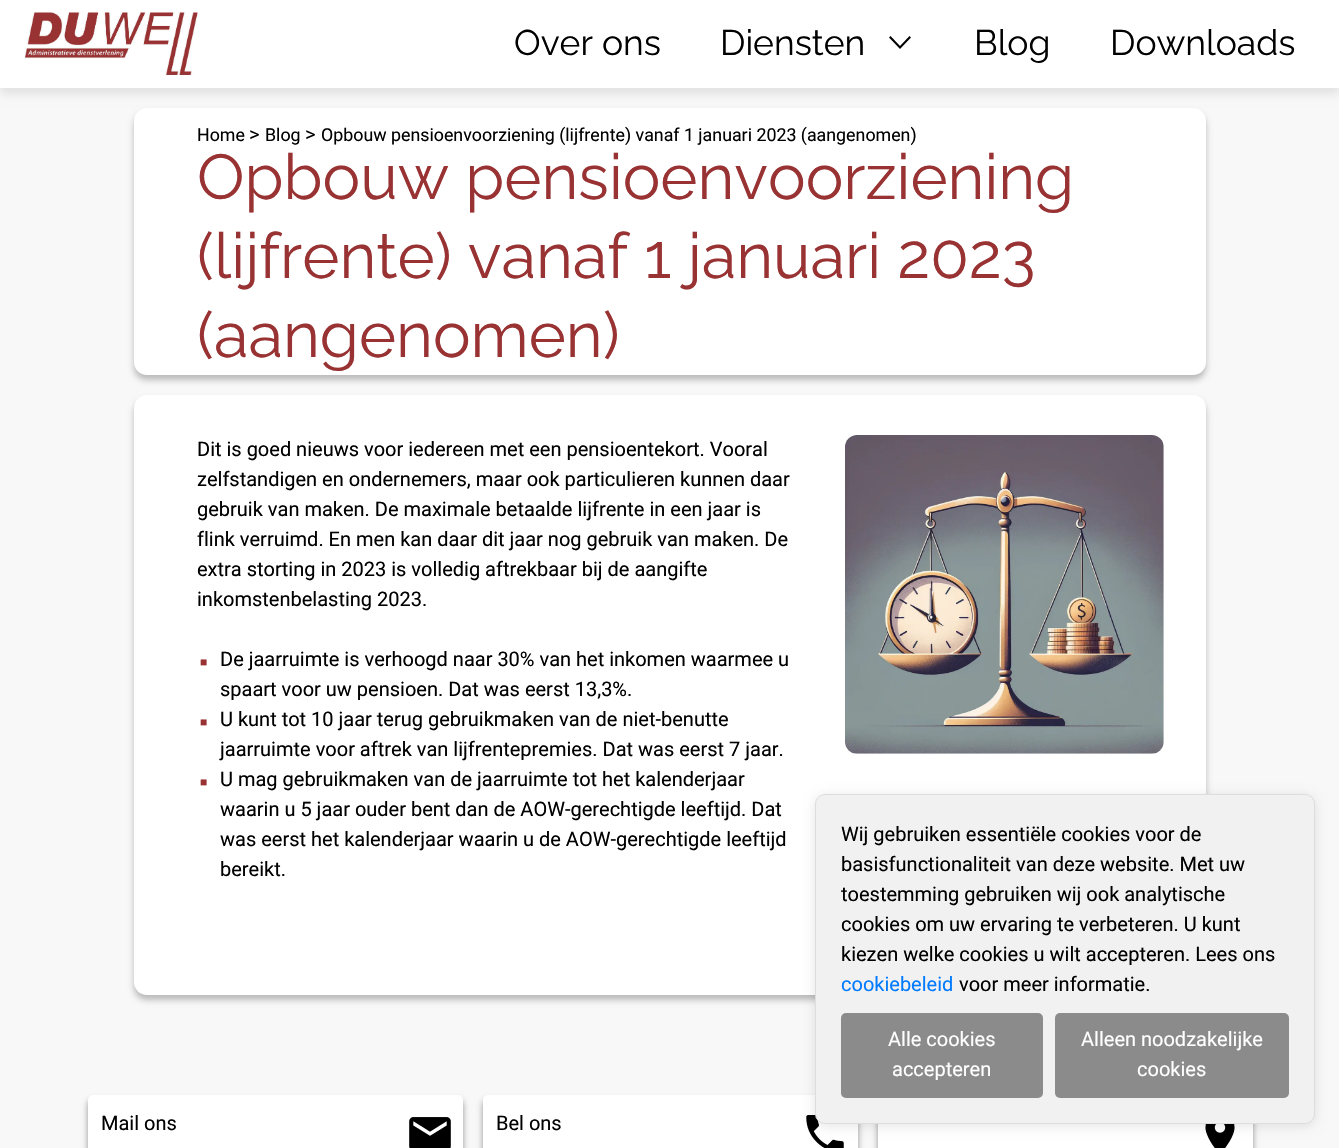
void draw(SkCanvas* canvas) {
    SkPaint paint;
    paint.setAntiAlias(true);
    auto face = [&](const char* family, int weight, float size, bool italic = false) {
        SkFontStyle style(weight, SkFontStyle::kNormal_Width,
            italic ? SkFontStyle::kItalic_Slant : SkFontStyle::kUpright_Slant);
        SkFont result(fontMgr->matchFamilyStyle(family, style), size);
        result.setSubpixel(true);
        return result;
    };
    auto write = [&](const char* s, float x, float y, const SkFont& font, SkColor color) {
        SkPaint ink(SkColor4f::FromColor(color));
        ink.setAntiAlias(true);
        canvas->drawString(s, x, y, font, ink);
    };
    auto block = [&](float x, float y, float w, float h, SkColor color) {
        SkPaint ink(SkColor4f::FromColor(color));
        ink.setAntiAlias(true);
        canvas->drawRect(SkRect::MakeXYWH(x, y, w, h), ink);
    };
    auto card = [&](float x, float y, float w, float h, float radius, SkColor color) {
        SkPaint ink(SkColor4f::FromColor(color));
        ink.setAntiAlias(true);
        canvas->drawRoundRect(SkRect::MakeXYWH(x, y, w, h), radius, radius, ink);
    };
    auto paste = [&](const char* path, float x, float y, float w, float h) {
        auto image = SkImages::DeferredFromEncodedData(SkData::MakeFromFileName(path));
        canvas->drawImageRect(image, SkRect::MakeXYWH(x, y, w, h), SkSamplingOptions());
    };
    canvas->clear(SkColorSetRGB(248, 248, 248));
    paint.setColor(SkColorSetARGB(26, 0, 0, 0));
    paint.setMaskFilter(SkMaskFilter::MakeBlur(kNormal_SkBlurStyle, 5));
    canvas->drawRect(SkRect::MakeXYWH(0, 5, 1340, 88), paint);
    paint.setMaskFilter(nullptr);
    block(0, 0, 1339, 88, SK_ColorWHITE);
    paste("pic1.png", 25, 12, 173, 63);
    auto kFont1 = face("Raleway", 400, 35.5f);
    write("Over ons", 514, 55, kFont1, SK_ColorBLACK);
    write("Diensten", 720, 55, kFont1, SK_ColorBLACK);
    paint.setColor(SK_ColorBLACK);
    canvas->drawPath(SkPathBuilder().moveTo(909.5f, 36).lineTo(911, 37.5f).lineTo(900, 49).lineTo(889, 37.5f).lineTo(890.5f, 36).lineTo(900, 46).close().detach(), paint);
    write("Blog", 974, 55, kFont1, SK_ColorBLACK);
    write("Downloads", 1110, 55, kFont1, SK_ColorBLACK);
    paint.setColor(SkColorSetARGB(64, 0, 0, 0));
    paint.setMaskFilter(SkMaskFilter::MakeBlur(kNormal_SkBlurStyle, 3));
    canvas->drawRoundRect(SkRect::MakeXYWH(134, 113, 1072, 267), 13, 13, paint);
    paint.setMaskFilter(nullptr);
    card(134, 108, 1072, 267, 13, SK_ColorWHITE);
    auto kFont2 = face("Roboto", 400, 17.8f);
    write("Home", 197, 141, kFont2, SK_ColorBLACK);
    auto kFont3 = face("Roboto", 400, 20);
    write(">", 249, 141, kFont3, SK_ColorBLACK);
    write("Blog", 265, 141, kFont2, SK_ColorBLACK);
    write(">", 305, 141, kFont3, SK_ColorBLACK);
    write("Opbouw pensioenvoorziening (lijfrente) vanaf 1 januari 2023 (aangenomen)", 321, 141, kFont2, SK_ColorBLACK);
    auto kFont4 = face("Raleway", 400, 63.25f);
    write("Opbouw pensioenvoorziening", 197, 199, kFont4, SkColorSetRGB(153, 50, 51));
    write("(lijfrente) vanaf 1 januari 2023", 197, 278, kFont4, SkColorSetRGB(153, 50, 51));
    write("(aangenomen)", 197, 357, kFont4, SkColorSetRGB(153, 50, 51));
    paint.setMaskFilter(SkMaskFilter::MakeBlur(kNormal_SkBlurStyle, 3));
    canvas->drawRoundRect(SkRect::MakeXYWH(134, 400, 1072, 600), 13, 13, paint);
    paint.setMaskFilter(nullptr);
    card(134, 395, 1072, 600, 13, SK_ColorWHITE);
    write("Dit is goed nieuws voor iedereen met een pensioentekort. Vooral", 197, 456, kFont3, SK_ColorBLACK);
    write("zelfstandigen en ondernemers, maar ook particulieren kunnen daar", 197, 486, kFont3, SK_ColorBLACK);
    write("gebruik van maken. De maximale betaalde lijfrente in een jaar is", 197, 516, kFont3, SK_ColorBLACK);
    write("flink verruimd. En men kan daar dit jaar nog gebruik van maken. De", 197, 546, kFont3, SK_ColorBLACK);
    write("extra storting in 2023 is volledig aftrekbaar bij de aangifte", 197, 576, kFont3, SK_ColorBLACK);
    write("inkomstenbelasting 2023.", 197, 606, kFont3, SK_ColorBLACK);
    auto kFont5 = face("Liberation Sans", 400, 12);
    write("■", 200, 666, kFont5, SkColorSetRGB(153, 50, 51));
    write("De jaarruimte is verhoogd naar 30% van het inkomen waarmee u", 220, 666, kFont3, SK_ColorBLACK);
    write("spaart voor uw pensioen. Dat was eerst 13,3%.", 220, 696, kFont3, SK_ColorBLACK);
    write("■", 200, 726, kFont5, SkColorSetRGB(153, 50, 51));
    write("U kunt tot 10 jaar terug gebruikmaken van de niet-benutte", 220, 726, kFont3, SK_ColorBLACK);
    write("jaarruimte voor aftrek van lijfrentepremies. Dat was eerst 7 jaar.", 220, 756, kFont3, SK_ColorBLACK);
    write("■", 200, 786, kFont5, SkColorSetRGB(153, 50, 51));
    write("U mag gebruikmaken van de jaarruimte tot het kalenderjaar", 220, 786, kFont3, SK_ColorBLACK);
    write("waarin u 5 jaar ouder bent dan de AOW-gerechtigde leeftijd. Dat", 220, 816, kFont3, SK_ColorBLACK);
    write("was eerst het kalenderjaar waarin u de AOW-gerechtigde leeftijd", 220, 846, kFont3, SK_ColorBLACK);
    write("bereikt.", 220, 876, kFont3, SK_ColorBLACK);
    paste("pic2.png", 845, 435, 319, 319);
    paint.setColor(SkColorSetARGB(102, 0, 0, 0));
    paint.setMaskFilter(SkMaskFilter::MakeBlur(kNormal_SkBlurStyle, 3));
    canvas->drawRoundRect(SkRect::MakeXYWH(88, 1100, 375, 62), 5, 5, paint);
    paint.setMaskFilter(nullptr);
    card(88, 1095, 375, 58, 5, SK_ColorWHITE);
    write("Mail ons", 101, 1130, kFont3, SK_ColorBLACK);
    paste("pic3.png", 409, 1117, 42, 31);
    paint.setMaskFilter(SkMaskFilter::MakeBlur(kNormal_SkBlurStyle, 3));
    canvas->drawRoundRect(SkRect::MakeXYWH(483, 1100, 375, 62), 5, 5, paint);
    paint.setMaskFilter(nullptr);
    card(483, 1095, 375, 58, 5, SK_ColorWHITE);
    write("Bel ons", 496, 1130, kFont3, SK_ColorBLACK);
    paste("pic4.png", 806, 1115, 38, 33);
    paint.setMaskFilter(SkMaskFilter::MakeBlur(kNormal_SkBlurStyle, 3));
    canvas->drawRoundRect(SkRect::MakeXYWH(878, 1100, 375, 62), 5, 5, paint);
    paint.setMaskFilter(nullptr);
    block(878, 1124, 375, 24, SK_ColorWHITE);
    paste("pic5.png", 1205, 1124, 30, 24);
    paint.setColor(SkColorSetARGB(26, 0, 0, 0));
    paint.setMaskFilter(SkMaskFilter::MakeBlur(kNormal_SkBlurStyle, 6));
    canvas->drawRoundRect(SkRect::MakeXYWH(815, 796, 500, 330), 10, 10, paint);
    paint.setMaskFilter(nullptr);
    paint.setColor(SkColorSetRGB(241, 241, 241));
    canvas->drawRoundRect(SkRect::MakeXYWH(815.5f, 794.5f, 499, 329), 9.5f, 9.5f, paint);
    paint.setStyle(SkPaint::kStroke_Style);
    paint.setStrokeWidth(1);
    paint.setColor(SkColorSetRGB(221, 221, 221));
    canvas->drawRoundRect(SkRect::MakeXYWH(815.5f, 794.5f, 499, 329), 9.5f, 9.5f, paint);
    write("Wij gebruiken essentiële cookies voor de", 841, 841, kFont3, SK_ColorBLACK);
    write("basisfunctionaliteit van deze website. Met uw", 841, 871, kFont3, SK_ColorBLACK);
    write("toestemming gebruiken wij ook analytische", 841, 901, kFont3, SK_ColorBLACK);
    write("cookies om uw ervaring te verbeteren. U kunt", 841, 931, kFont3, SK_ColorBLACK);
    write("kiezen welke cookies u wilt accepteren. Lees ons", 841, 961, kFont3, SK_ColorBLACK);
    write("cookiebeleid", 841, 991, kFont3, SkColorSetRGB(0, 123, 255));
    write("voor meer informatie.", 959, 991, kFont3, SK_ColorBLACK);
    card(841, 1013, 202, 85, 5, SkColorSetRGB(139, 139, 139));
    write("Alle cookies", 888, 1046, kFont3, SK_ColorWHITE);
    write("accepteren", 892, 1076, kFont3, SK_ColorWHITE);
    card(1055, 1013, 234, 85, 5, SkColorSetRGB(139, 139, 139));
    write("Alleen noodzakelijke", 1081, 1046, kFont3, SK_ColorWHITE);
    write("cookies", 1137, 1076, kFont3, SK_ColorWHITE);
}
